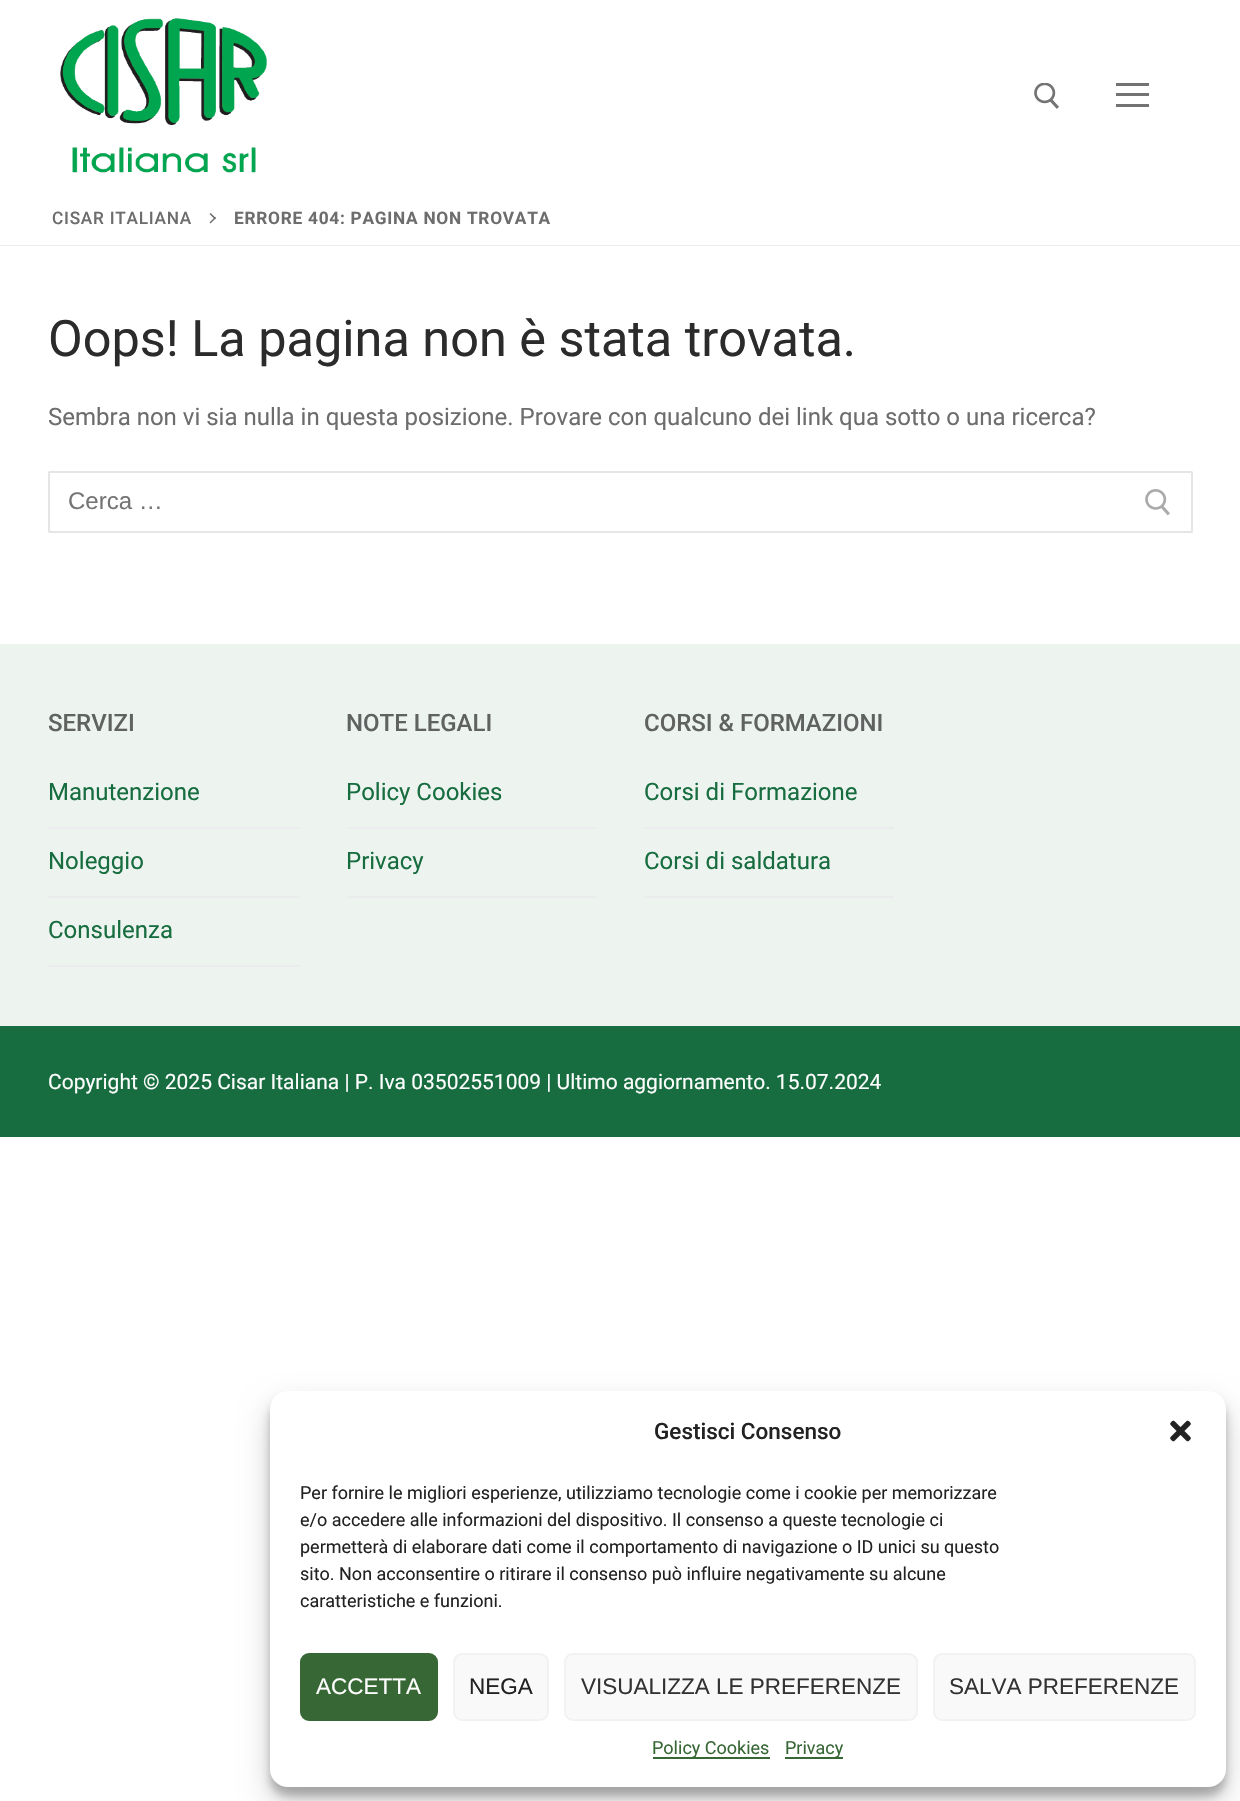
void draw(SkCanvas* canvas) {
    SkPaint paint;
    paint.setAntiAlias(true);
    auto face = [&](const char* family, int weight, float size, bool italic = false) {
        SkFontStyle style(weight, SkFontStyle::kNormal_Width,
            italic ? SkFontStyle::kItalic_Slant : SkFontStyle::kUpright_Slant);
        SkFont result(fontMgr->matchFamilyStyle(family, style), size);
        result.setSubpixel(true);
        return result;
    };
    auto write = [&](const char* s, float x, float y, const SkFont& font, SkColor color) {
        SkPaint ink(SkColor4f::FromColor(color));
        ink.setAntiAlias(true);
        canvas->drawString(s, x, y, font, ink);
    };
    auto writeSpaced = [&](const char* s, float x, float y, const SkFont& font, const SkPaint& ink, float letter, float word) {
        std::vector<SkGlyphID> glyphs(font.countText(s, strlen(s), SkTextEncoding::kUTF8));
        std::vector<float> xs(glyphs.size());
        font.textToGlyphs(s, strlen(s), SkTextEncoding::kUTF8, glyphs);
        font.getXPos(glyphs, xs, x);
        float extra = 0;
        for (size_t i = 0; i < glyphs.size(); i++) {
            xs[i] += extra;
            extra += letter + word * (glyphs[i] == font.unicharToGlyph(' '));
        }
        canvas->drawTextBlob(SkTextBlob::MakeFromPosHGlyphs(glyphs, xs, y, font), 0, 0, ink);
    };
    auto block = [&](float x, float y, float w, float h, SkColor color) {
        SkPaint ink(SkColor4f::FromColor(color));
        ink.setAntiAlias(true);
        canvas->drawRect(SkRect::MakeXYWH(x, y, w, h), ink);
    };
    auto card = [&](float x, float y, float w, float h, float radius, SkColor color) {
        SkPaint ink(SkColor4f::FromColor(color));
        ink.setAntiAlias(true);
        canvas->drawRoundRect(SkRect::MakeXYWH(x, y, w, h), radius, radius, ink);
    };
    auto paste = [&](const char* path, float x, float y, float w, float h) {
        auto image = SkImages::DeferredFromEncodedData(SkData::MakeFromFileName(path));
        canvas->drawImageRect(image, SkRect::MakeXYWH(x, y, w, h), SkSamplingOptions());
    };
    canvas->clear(SK_ColorWHITE);
    paste("pic1.png", 60, 18, 207, 155);
    paste("pic2.png", 1034, 83, 25, 26);
    block(1116, 93, 33, 3, SkColorSetRGB(115, 115, 115));
    block(1116, 83, 33, 3, SkColorSetRGB(115, 115, 115));
    block(1116, 104, 33, 3, SkColorSetRGB(115, 115, 115));
    block(0, 245, 1240, 1, SkColorSetRGB(234, 236, 238));
    auto kFont1 = face("Roboto", 500, 17.25f);
    paint.setColor(SkColorSetRGB(109, 109, 109));
    writeSpaced("CISAR ITALIANA", 52, 224, kFont1, paint, 0.75f, 0);
    canvas->drawPath(SkPathBuilder().moveTo(216, 218).lineTo(210.5f, 223.5f).lineTo(209.5f, 222.5f).lineTo(215, 217).close().detach(), paint);
    canvas->drawPath(SkPathBuilder().moveTo(216, 218).lineTo(215, 219.5f).lineTo(209.5f, 214).lineTo(210.5f, 213).close().detach(), paint);
    auto kFont2 = face("Roboto", 700, 17.25f);
    writeSpaced("ERRORE 404: PAGINA NON TROVATA", 234, 224, kFont2, paint, 0.75f, 0);
    auto kFont3 = face("Roboto", 400, 50.4f);
    write("Oops! La pagina non è stata trovata.", 48, 356, kFont3, SkColorSetRGB(43, 43, 43));
    auto kFont4 = face("Roboto", 400, 24);
    write("Sembra non vi sia nulla in questa posizione. Provare con qualcuno dei link qua sotto o una ricerca?", 48, 425, kFont4, SkColorSetRGB(109, 109, 109));
    paint.setStyle(SkPaint::kStroke_Style);
    paint.setStrokeWidth(2);
    paint.setColor(SkColorSetRGB(229, 229, 229));
    canvas->drawRoundRect(SkRect::MakeXYWH(49, 472, 1143, 60), 0.5f, 0.5f, paint);
    auto kFont5 = face("Liberation Sans", 400, 24);
    write("Cerca …", 68, 509, kFont5, SkColorSetRGB(117, 117, 117));
    paste("pic3.png", 1145, 489, 25, 27);
    block(0, 644, 1240, 382, SkColorSetRGB(237, 244, 240));
    auto kFont6 = face("Roboto", 500, 24);
    write("SERVIZI", 48, 731, kFont6, SkColorSetRGB(95, 98, 96));
    block(48, 827, 251, 2, SkColorSetRGB(234, 236, 238));
    write("Manutenzione", 48, 800, kFont4, SkColorSetRGB(23, 109, 63));
    block(48, 896, 251, 2, SkColorSetRGB(234, 236, 238));
    write("Noleggio", 48, 869, kFont4, SkColorSetRGB(23, 109, 63));
    block(48, 965, 251, 2, SkColorSetRGB(234, 236, 238));
    write("Consulenza", 48, 938, kFont4, SkColorSetRGB(23, 109, 63));
    write("NOTE LEGALI", 346, 731, kFont6, SkColorSetRGB(95, 98, 96));
    block(347, 827, 250, 2, SkColorSetRGB(234, 236, 238));
    write("Policy Cookies", 346, 800, kFont4, SkColorSetRGB(23, 109, 63));
    block(347, 896, 250, 2, SkColorSetRGB(234, 236, 238));
    write("Privacy", 346, 869, kFont4, SkColorSetRGB(23, 109, 63));
    write("CORSI & FORMAZIONI", 644, 731, kFont6, SkColorSetRGB(95, 98, 96));
    block(645, 827, 249, 2, SkColorSetRGB(234, 236, 238));
    write("Corsi di Formazione", 644, 800, kFont4, SkColorSetRGB(23, 109, 63));
    block(645, 896, 249, 2, SkColorSetRGB(234, 236, 238));
    write("Corsi di saldatura", 644, 869, kFont4, SkColorSetRGB(23, 109, 63));
    block(0, 1026, 1240, 111, SkColorSetRGB(23, 109, 63));
    auto kFont7 = face("Roboto", 400, 21);
    write("Copyright © 2025 Cisar Italiana | P. Iva 03502551009 | Ultimo aggiornamento. 15.07.2024", 48, 1089, kFont7, SkColorSetRGB(253, 254, 253));
    paint.setStyle(SkPaint::kFill_Style);
    paint.setColor(SkColorSetARGB(59, 0, 0, 0));
    paint.setMaskFilter(SkMaskFilter::MakeBlur(kNormal_SkBlurStyle, 4.5f));
    canvas->drawRoundRect(SkRect::MakeXYWH(270, 1400, 956, 396), 18, 18, paint);
    paint.setMaskFilter(nullptr);
    paint.setColor(SkColorSetARGB(48, 0, 0, 0));
    paint.setMaskFilter(SkMaskFilter::MakeBlur(kNormal_SkBlurStyle, 15));
    canvas->drawRoundRect(SkRect::MakeXYWH(270, 1406, 956, 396), 18, 18, paint);
    paint.setMaskFilter(nullptr);
    card(270, 1391, 956, 396, 18, SK_ColorWHITE);
    auto kFont8 = face("Roboto", 500, 22.5f);
    write("Gestisci Consenso", 654, 1439, kFont8, SkColorSetRGB(34, 34, 34));
    paste("pic4.png", 1170, 1420, 21, 22);
    auto kFont9 = face("Roboto", 400, 18);
    write("Per fornire le migliori esperienze, utilizziamo tecnologie come i cookie per memorizzare", 300, 1499, kFont9, SkColorSetRGB(34, 34, 34));
    write("e/o accedere alle informazioni del dispositivo. Il consenso a queste tecnologie ci", 300, 1526, kFont9, SkColorSetRGB(34, 34, 34));
    write("permetterà di elaborare dati come il comportamento di navigazione o ID unici su questo", 300, 1553, kFont9, SkColorSetRGB(34, 34, 34));
    write("sito. Non acconsentire o ritirare il consenso può influire negativamente su alcune", 300, 1580, kFont9, SkColorSetRGB(34, 34, 34));
    write("caratteristiche e funzioni.", 300, 1607, kFont9, SkColorSetRGB(34, 34, 34));
    paint.setColor(SkColorSetRGB(56, 103, 54));
    canvas->drawRoundRect(SkRect::MakeXYWH(301, 1654, 136, 66), 8, 8, paint);
    paint.setStyle(SkPaint::kStroke_Style);
    canvas->drawRoundRect(SkRect::MakeXYWH(301, 1654, 136, 66), 8, 8, paint);
    auto kFont10 = face("Liberation Sans", 400, 22.5f);
    write("ACCETTA", 316, 1694, kFont10, SkColorSetRGB(253, 254, 253));
    paint.setStyle(SkPaint::kFill_Style);
    paint.setColor(SkColorSetRGB(249, 249, 249));
    canvas->drawRoundRect(SkRect::MakeXYWH(454, 1654, 94, 66), 8, 8, paint);
    paint.setStyle(SkPaint::kStroke_Style);
    paint.setColor(SkColorSetRGB(242, 242, 242));
    canvas->drawRoundRect(SkRect::MakeXYWH(454, 1654, 94, 66), 8, 8, paint);
    write("NEGA", 469, 1694, kFont10, SkColorSetRGB(34, 34, 34));
    paint.setStyle(SkPaint::kFill_Style);
    paint.setColor(SkColorSetRGB(249, 249, 249));
    canvas->drawRoundRect(SkRect::MakeXYWH(565, 1654, 352, 66), 8, 8, paint);
    paint.setStyle(SkPaint::kStroke_Style);
    paint.setColor(SkColorSetRGB(242, 242, 242));
    canvas->drawRoundRect(SkRect::MakeXYWH(565, 1654, 352, 66), 8, 8, paint);
    write("VISUALIZZA LE PREFERENZE", 581, 1694, kFont10, SkColorSetRGB(51, 51, 51));
    paint.setStyle(SkPaint::kFill_Style);
    paint.setColor(SkColorSetRGB(249, 249, 249));
    canvas->drawRoundRect(SkRect::MakeXYWH(934, 1654, 261, 66), 8, 8, paint);
    paint.setStyle(SkPaint::kStroke_Style);
    paint.setColor(SkColorSetRGB(242, 242, 242));
    canvas->drawRoundRect(SkRect::MakeXYWH(934, 1654, 261, 66), 8, 8, paint);
    write("SALVA PREFERENZE", 949, 1694, kFont10, SkColorSetRGB(51, 51, 51));
    block(653, 1757, 117, 2, SkColorSetRGB(56, 103, 54));
    write("Policy Cookies", 652, 1754, kFont9, SkColorSetRGB(56, 103, 54));
    block(785, 1757, 58, 2, SkColorSetRGB(56, 103, 54));
    write("Privacy", 785, 1754, kFont9, SkColorSetRGB(56, 103, 54));
}
